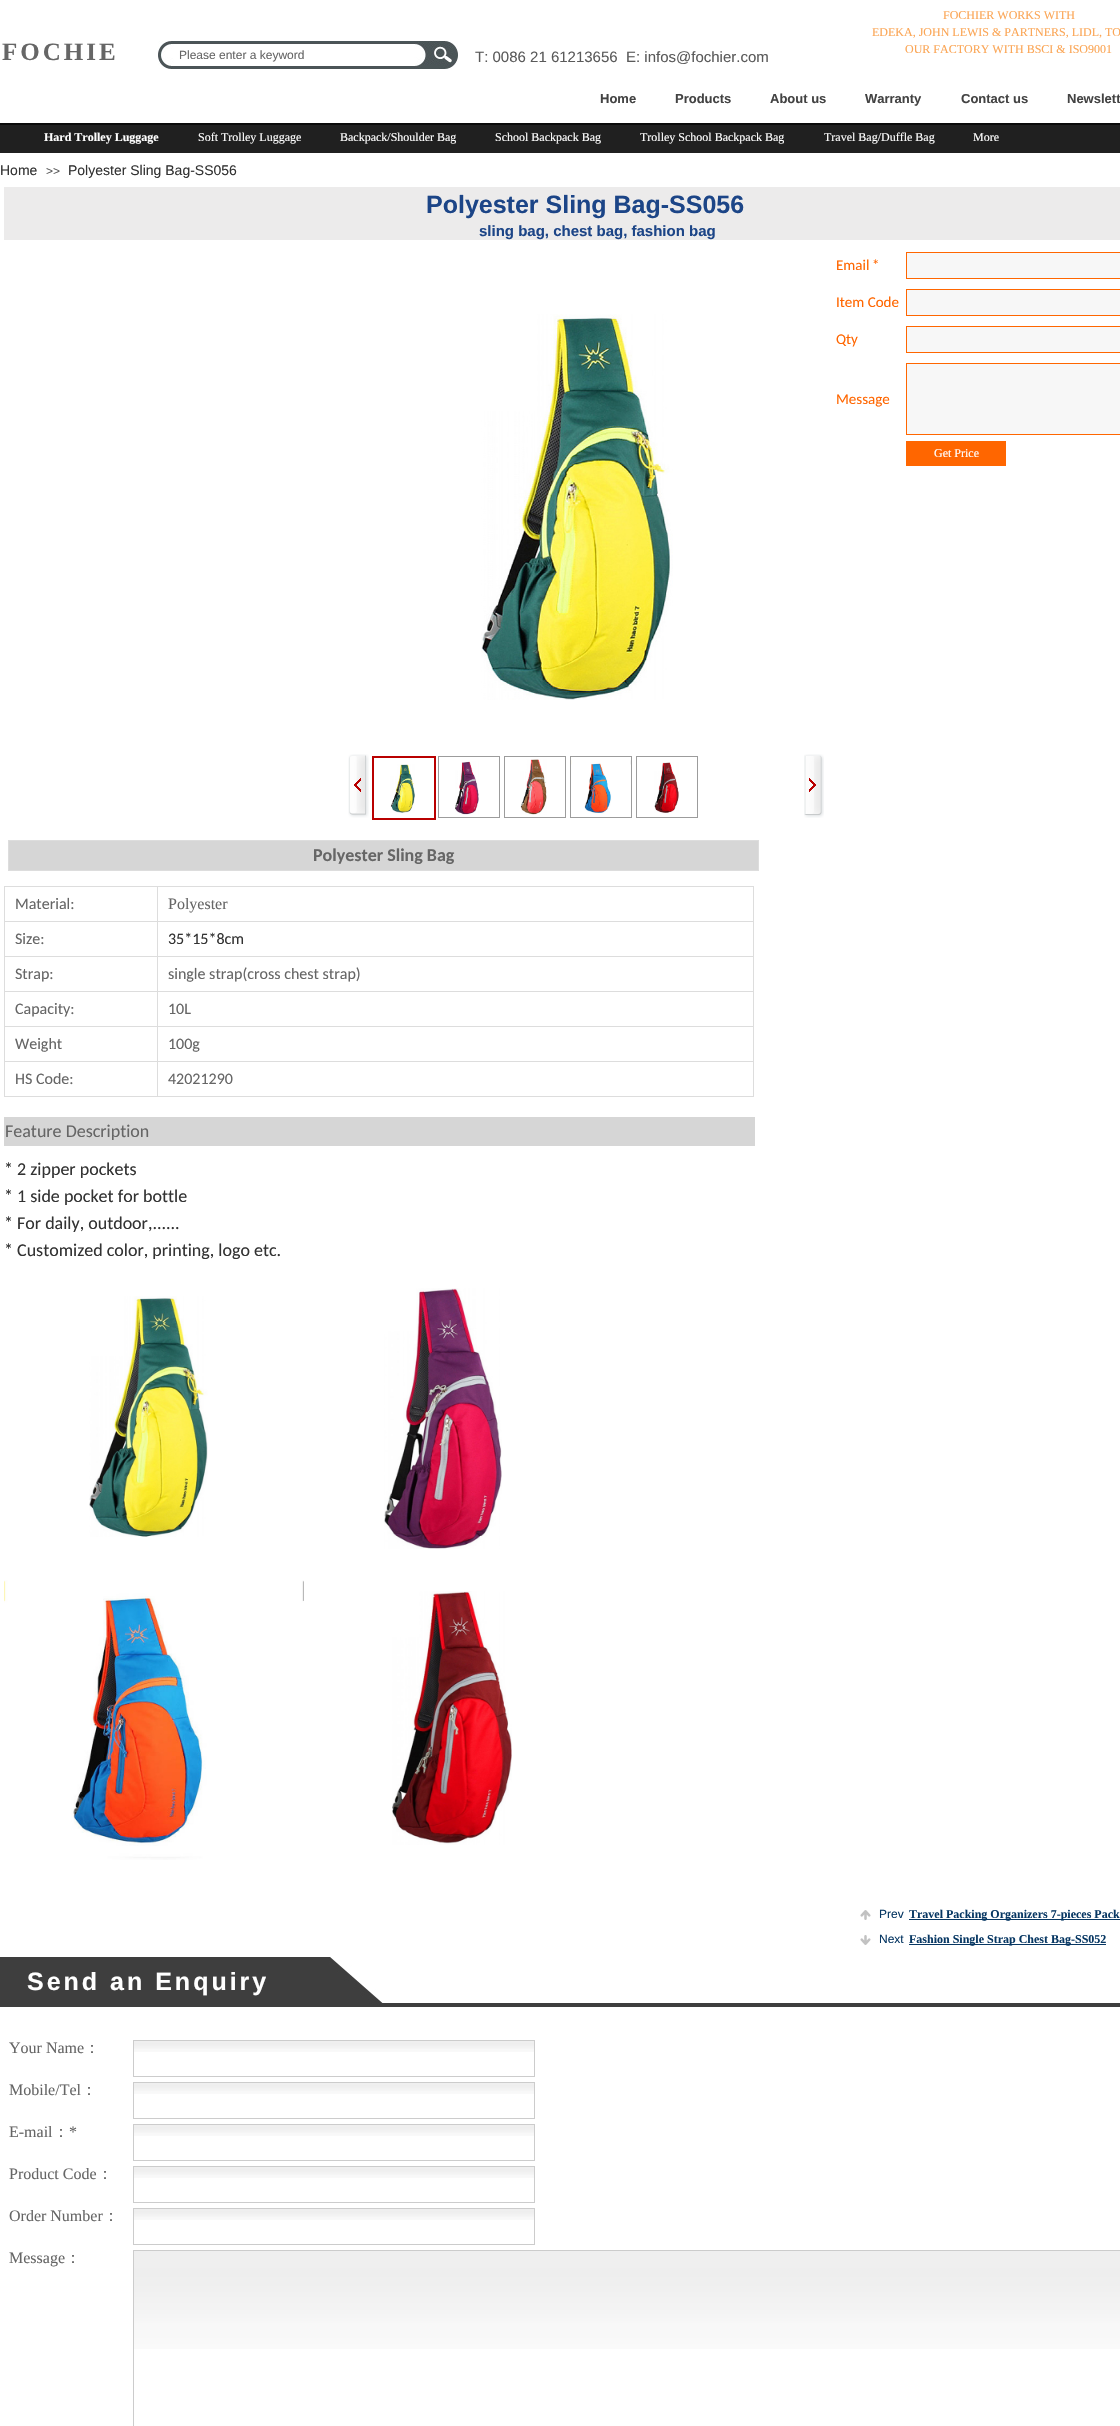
void draw(SkCanvas* canvas) {
    SkPaint paint;
    paint.setAntiAlias(true);
    auto face = [&](const char* family, int weight, float size, bool italic = false) {
        SkFontStyle style(weight, SkFontStyle::kNormal_Width,
            italic ? SkFontStyle::kItalic_Slant : SkFontStyle::kUpright_Slant);
        SkFont result(fontMgr->matchFamilyStyle(family, style), size);
        result.setSubpixel(true);
        return result;
    };
    auto write = [&](const char* s, float x, float y, const SkFont& font, SkColor color) {
        SkPaint ink(SkColor4f::FromColor(color));
        ink.setAntiAlias(true);
        canvas->drawString(s, x, y, font, ink);
    };
    auto writeSpaced = [&](const char* s, float x, float y, const SkFont& font, const SkPaint& ink, float letter, float word) {
        std::vector<SkGlyphID> glyphs(font.countText(s, strlen(s), SkTextEncoding::kUTF8));
        std::vector<float> xs(glyphs.size());
        font.textToGlyphs(s, strlen(s), SkTextEncoding::kUTF8, glyphs);
        font.getXPos(glyphs, xs, x);
        float extra = 0;
        for (size_t i = 0; i < glyphs.size(); i++) {
            xs[i] += extra;
            extra += letter + word * (glyphs[i] == font.unicharToGlyph(' '));
        }
        canvas->drawTextBlob(SkTextBlob::MakeFromPosHGlyphs(glyphs, xs, y, font), 0, 0, ink);
    };
    auto block = [&](float x, float y, float w, float h, SkColor color) {
        SkPaint ink(SkColor4f::FromColor(color));
        ink.setAntiAlias(true);
        canvas->drawRect(SkRect::MakeXYWH(x, y, w, h), ink);
    };
    auto paste = [&](const char* path, float x, float y, float w, float h) {
        auto image = SkImages::DeferredFromEncodedData(SkData::MakeFromFileName(path));
        canvas->drawImageRect(image, SkRect::MakeXYWH(x, y, w, h), SkSamplingOptions());
    };
    canvas->clear(SK_ColorWHITE);
    auto kFont1 = face("Liberation Serif", 400, 12);
    write("FOCHIER WORKS WITH", 943, 19, kFont1, SkColorSetRGB(251, 166, 86));
    write("EDEKA, JOHN LEWIS & PARTNERS, LIDL, TO", 872, 36, kFont1, SkColorSetRGB(251, 166, 86));
    write("OUR FACTORY WITH BSCI & ISO9001", 905, 53, kFont1, SkColorSetRGB(251, 166, 86));
    auto kFont2 = face("Liberation Serif", 700, 25);
    paint.setColor(SkColorSetRGB(102, 102, 102));
    writeSpaced("FOCHIE", 2, 60, kFont2, paint, 3, 0);
    auto kFont3 = face("Liberation Sans", 700, 13);
    write("Home", 600, 103, kFont3, SkColorSetRGB(67, 67, 67));
    write("Products", 675, 103, kFont3, SkColorSetRGB(67, 67, 67));
    write("About us", 770, 103, kFont3, SkColorSetRGB(67, 67, 67));
    write("Warranty", 865, 103, kFont3, SkColorSetRGB(67, 67, 67));
    write("Contact us", 961, 103, kFont3, SkColorSetRGB(67, 67, 67));
    write("Newslett", 1067, 103, kFont3, SkColorSetRGB(67, 67, 67));
    paste("pic1.png", 158, 41, 300, 28);
    block(414, 58, 2, 5, SK_ColorWHITE);
    auto kFont4 = face("Liberation Sans", 400, 12);
    write("Please enter a keyword", 179, 59, kFont4, SkColorSetRGB(102, 102, 102));
    auto kFont5 = face("Liberation Sans", 400, 15);
    write("T: 0086 21 61213656  E: infos@fochier.com", 475, 62, kFont5, SkColorSetRGB(90, 90, 90));
    paste("pic2.png", 0, 123, 1120, 30);
    auto kFont6 = face("Liberation Serif", 700, 12);
    write("Hard Trolley Luggage", 44, 141, kFont6, SK_ColorWHITE);
    write("Soft Trolley Luggage", 198, 141, kFont1, SK_ColorWHITE);
    write("Backpack/Shoulder Bag", 340, 141, kFont1, SK_ColorWHITE);
    write("School Backpack Bag", 495, 141, kFont1, SK_ColorWHITE);
    write("Trolley School Backpack Bag", 640, 141, kFont1, SK_ColorWHITE);
    write("Travel Bag/Duffle Bag", 824, 141, kFont1, SK_ColorWHITE);
    write("More", 973, 141, kFont1, SK_ColorWHITE);
    auto kFont7 = face("Liberation Sans", 400, 14);
    write("Home", 0, 175, kFont7, SkColorSetRGB(51, 51, 51));
    write(">>", 46, 175, kFont4, SkColorSetRGB(90, 90, 90));
    write("Polyester Sling Bag-SS056", 68, 175, kFont7, SkColorSetRGB(51, 51, 51));
    block(4, 187, 1116, 53, SkColorSetRGB(236, 235, 235));
    auto kFont8 = face("Liberation Sans", 700, 25);
    write("Polyester Sling Bag-SS056", 426, 213, kFont8, SkColorSetRGB(28, 69, 135));
    auto kFont9 = face("Liberation Sans", 700, 15);
    write("sling bag, chest bag, fashion bag", 479, 236, kFont9, SkColorSetRGB(28, 69, 135));
    paste("pic3.png", 481, 314, 192, 386);
    paste("pic4.png", 348, 754, 21, 64);
    paint.setStyle(SkPaint::kStroke_Style);
    paint.setStrokeWidth(2);
    paint.setColor(SkColorSetRGB(185, 0, 0));
    canvas->drawRect(SkRect::MakeXYWH(373, 757, 62, 62), paint);
    paste("pic5.png", 390, 764, 25, 49);
    paint.setStrokeWidth(1);
    paint.setColor(SkColorSetRGB(156, 156, 156));
    canvas->drawRect(SkRect::MakeXYWH(438.5f, 756.5f, 61, 61), paint);
    paste("pic6.png", 455, 761, 24, 54);
    canvas->drawRect(SkRect::MakeXYWH(504.5f, 756.5f, 61, 61), paint);
    paste("pic7.png", 520, 759, 27, 56);
    canvas->drawRect(SkRect::MakeXYWH(570.5f, 756.5f, 61, 61), paint);
    paste("pic8.png", 571, 760, 60, 53);
    canvas->drawRect(SkRect::MakeXYWH(636.5f, 756.5f, 61, 61), paint);
    paste("pic9.png", 654, 762, 25, 51);
    paste("pic10.png", 804, 754, 20, 64);
    block(9, 841, 749, 29, SkColorSetRGB(214, 214, 214));
    block(8, 840, 751, 1, SkColorSetRGB(221, 221, 221));
    block(758, 840, 1, 31, SkColorSetRGB(221, 221, 221));
    block(8, 870, 751, 1, SkColorSetRGB(221, 221, 221));
    block(8, 840, 1, 31, SkColorSetRGB(221, 221, 221));
    auto kFont10 = face("Carlito", 700, 18);
    write("Polyester Sling Bag", 313, 861, kFont10, SkColorSetRGB(102, 102, 102));
    block(157, 886, 597, 1, SkColorSetRGB(221, 221, 221));
    block(157, 921, 597, 1, SkColorSetRGB(221, 221, 221));
    block(157, 956, 597, 1, SkColorSetRGB(221, 221, 221));
    block(157, 991, 597, 1, SkColorSetRGB(221, 221, 221));
    block(157, 1026, 597, 1, SkColorSetRGB(221, 221, 221));
    block(157, 1061, 597, 1, SkColorSetRGB(221, 221, 221));
    block(753, 1061, 1, 36, SkColorSetRGB(221, 221, 221));
    block(157, 1096, 597, 1, SkColorSetRGB(221, 221, 221));
    block(157, 1061, 1, 36, SkColorSetRGB(221, 221, 221));
    block(4, 1061, 154, 1, SkColorSetRGB(221, 221, 221));
    block(157, 1026, 1, 36, SkColorSetRGB(221, 221, 221));
    block(4, 1026, 154, 1, SkColorSetRGB(221, 221, 221));
    block(157, 991, 1, 36, SkColorSetRGB(221, 221, 221));
    block(4, 991, 154, 1, SkColorSetRGB(221, 221, 221));
    block(157, 956, 1, 36, SkColorSetRGB(221, 221, 221));
    block(4, 956, 154, 1, SkColorSetRGB(221, 221, 221));
    block(157, 921, 1, 36, SkColorSetRGB(221, 221, 221));
    block(4, 921, 154, 1, SkColorSetRGB(221, 221, 221));
    block(157, 886, 1, 36, SkColorSetRGB(221, 221, 221));
    block(4, 886, 154, 1, SkColorSetRGB(221, 221, 221));
    block(4, 1096, 154, 1, SkColorSetRGB(221, 221, 221));
    block(4, 1061, 1, 36, SkColorSetRGB(221, 221, 221));
    block(4, 1026, 1, 36, SkColorSetRGB(221, 221, 221));
    block(4, 991, 1, 36, SkColorSetRGB(221, 221, 221));
    block(4, 956, 1, 36, SkColorSetRGB(221, 221, 221));
    block(4, 921, 1, 36, SkColorSetRGB(221, 221, 221));
    block(4, 886, 1, 36, SkColorSetRGB(221, 221, 221));
    auto kFont11 = face("Carlito", 400, 16);
    write("Material:", 15, 909, kFont11, SkColorSetRGB(102, 102, 102));
    block(753, 1026, 1, 36, SkColorSetRGB(221, 221, 221));
    block(753, 991, 1, 36, SkColorSetRGB(221, 221, 221));
    block(753, 956, 1, 36, SkColorSetRGB(221, 221, 221));
    block(753, 921, 1, 36, SkColorSetRGB(221, 221, 221));
    block(753, 886, 1, 36, SkColorSetRGB(221, 221, 221));
    auto kFont12 = face("Liberation Serif", 400, 16);
    write("Polyester", 168, 909, kFont12, SkColorSetRGB(102, 102, 102));
    write("Size:", 15, 944, kFont11, SkColorSetRGB(102, 102, 102));
    write("35*15*8cm", 168, 944, kFont11, SkColorSetRGB(51, 51, 51));
    write("Strap:", 15, 979, kFont11, SkColorSetRGB(102, 102, 102));
    write("single strap(cross chest strap)", 168, 979, kFont11, SkColorSetRGB(102, 102, 102));
    write("Capacity:", 15, 1014, kFont11, SkColorSetRGB(102, 102, 102));
    write("10L", 168, 1014, kFont11, SkColorSetRGB(102, 102, 102));
    write("Weight", 15, 1049, kFont11, SkColorSetRGB(102, 102, 102));
    write("100g", 168, 1049, kFont11, SkColorSetRGB(102, 102, 102));
    write("HS Code:", 15, 1084, kFont11, SkColorSetRGB(102, 102, 102));
    write("42021290", 168, 1084, kFont11, SkColorSetRGB(102, 102, 102));
    block(4, 1117, 751, 29, SkColorSetRGB(214, 214, 214));
    auto kFont13 = face("Carlito", 400, 18);
    write("Feature Description", 5, 1137, kFont13, SkColorSetRGB(102, 102, 102));
    write("* 2 zipper pockets", 4, 1175, kFont13, SkColorSetRGB(51, 51, 51));
    write("* 1 side pocket for bottle", 4, 1202, kFont13, SkColorSetRGB(51, 51, 51));
    write("* For daily, outdoor,......", 4, 1229, kFont13, SkColorSetRGB(51, 51, 51));
    write("* Customized color, printing, logo etc.", 4, 1256, kFont13, SkColorSetRGB(51, 51, 51));
    paste("pic11.png", 89, 1296, 119, 241);
    paste("pic12.png", 384, 1288, 118, 261);
    paste("pic13.png", 4, 1580, 300, 280);
    paste("pic14.png", 392, 1591, 120, 254);
    block(860, 1910, 11, 10, SkColorSetRGB(194, 194, 194));
    paste("pic15.png", 860, 1910, 11, 10);
    write("Prev", 879, 1918, kFont4, SkColorSetRGB(7, 55, 99));
    block(909, 1919, 211, 1, SkColorSetRGB(7, 55, 99));
    write("Travel Packing Organizers 7-pieces Pack", 909, 1918, kFont6, SkColorSetRGB(7, 55, 99));
    block(860, 1935, 11, 10, SkColorSetRGB(194, 194, 194));
    paste("pic16.png", 860, 1935, 11, 10);
    write("Next", 879, 1943, kFont4, SkColorSetRGB(7, 55, 99));
    block(909, 1944, 197, 1, SkColorSetRGB(7, 55, 99));
    write("Fashion Single Strap Chest Bag-SS052", 909, 1943, kFont6, SkColorSetRGB(7, 55, 99));
    auto kFont14 = face("Carlito", 400, 15);
    write("Email", 836, 270, kFont14, SkColorSetRGB(255, 102, 0));
    write("*", 872, 270, kFont14, SkColorSetRGB(255, 102, 0));
    paint.setStyle(SkPaint::kFill_Style);
    paint.setColor(SkColorSetRGB(247, 247, 247));
    canvas->drawRect(SkRect::MakeXYWH(906.5f, 252.5f, 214, 26), paint);
    paint.setStyle(SkPaint::kStroke_Style);
    paint.setColor(SkColorSetRGB(255, 102, 0));
    canvas->drawRect(SkRect::MakeXYWH(906.5f, 252.5f, 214, 26), paint);
    write("Item Code", 836, 307, kFont14, SkColorSetRGB(255, 102, 0));
    paint.setStyle(SkPaint::kFill_Style);
    paint.setColor(SkColorSetRGB(247, 247, 247));
    canvas->drawRect(SkRect::MakeXYWH(906.5f, 289.5f, 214, 26), paint);
    paint.setStyle(SkPaint::kStroke_Style);
    paint.setColor(SkColorSetRGB(255, 102, 0));
    canvas->drawRect(SkRect::MakeXYWH(906.5f, 289.5f, 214, 26), paint);
    write("Qty", 836, 344, kFont14, SkColorSetRGB(255, 102, 0));
    paint.setStyle(SkPaint::kFill_Style);
    paint.setColor(SkColorSetRGB(247, 247, 247));
    canvas->drawRect(SkRect::MakeXYWH(906.5f, 326.5f, 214, 26), paint);
    paint.setStyle(SkPaint::kStroke_Style);
    paint.setColor(SkColorSetRGB(255, 102, 0));
    canvas->drawRect(SkRect::MakeXYWH(906.5f, 326.5f, 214, 26), paint);
    write("Message", 836, 404, kFont14, SkColorSetRGB(255, 102, 0));
    paint.setStyle(SkPaint::kFill_Style);
    paint.setColor(SkColorSetRGB(247, 247, 247));
    canvas->drawRect(SkRect::MakeXYWH(906.5f, 363.5f, 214, 71), paint);
    paint.setStyle(SkPaint::kStroke_Style);
    paint.setColor(SkColorSetRGB(255, 102, 0));
    canvas->drawRect(SkRect::MakeXYWH(906.5f, 363.5f, 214, 71), paint);
    block(906, 441, 100, 25, SkColorSetRGB(255, 102, 0));
    write("Get Price", 934, 457, kFont1, SK_ColorWHITE);
    paste("pic17.png", 0, 1957, 1120, 50);
    paint.setStyle(SkPaint::kFill_Style);
    paint.setColor(SK_ColorWHITE);
    writeSpaced("Send an Enquiry", 27, 1990, kFont8, paint, 3, 0);
    write("Your Name", 9, 2053, kFont12, SkColorSetRGB(102, 102, 102));
    auto kFont15 = face("WenQuanYi Zen Hei", 500, 16);
    write("：", 84, 2053, kFont15, SkColorSetRGB(102, 102, 102));
    paste("pic18.png", 134, 2041, 400, 11);
    paint.setStyle(SkPaint::kStroke_Style);
    paint.setColor(SkColorSetRGB(204, 204, 204));
    canvas->drawRect(SkRect::MakeXYWH(133.5f, 2040.5f, 401, 36), paint);
    write("Mobile/Tel", 9, 2095, kFont12, SkColorSetRGB(102, 102, 102));
    write("：", 81, 2095, kFont15, SkColorSetRGB(102, 102, 102));
    paste("pic18.png", 134, 2083, 400, 11);
    canvas->drawRect(SkRect::MakeXYWH(133.5f, 2082.5f, 401, 36), paint);
    write("E-mail", 9, 2137, kFont12, SkColorSetRGB(102, 102, 102));
    write("：", 53, 2137, kFont15, SkColorSetRGB(102, 102, 102));
    write("*", 69, 2137, kFont12, SkColorSetRGB(102, 102, 102));
    paste("pic18.png", 134, 2125, 400, 11);
    canvas->drawRect(SkRect::MakeXYWH(133.5f, 2124.5f, 401, 36), paint);
    write("Product Code", 9, 2179, kFont12, SkColorSetRGB(102, 102, 102));
    write("：", 97, 2179, kFont15, SkColorSetRGB(102, 102, 102));
    paste("pic18.png", 134, 2167, 400, 11);
    canvas->drawRect(SkRect::MakeXYWH(133.5f, 2166.5f, 401, 36), paint);
    write("Order Number", 9, 2221, kFont12, SkColorSetRGB(102, 102, 102));
    write("：", 103, 2221, kFont15, SkColorSetRGB(102, 102, 102));
    paste("pic18.png", 134, 2209, 400, 11);
    canvas->drawRect(SkRect::MakeXYWH(133.5f, 2208.5f, 401, 36), paint);
    write("Message", 9, 2263, kFont12, SkColorSetRGB(102, 102, 102));
    write("：", 65, 2263, kFont15, SkColorSetRGB(102, 102, 102));
    paste("pic19.png", 134, 2251, 986, 98);
    canvas->drawRect(SkRect::MakeXYWH(133.5f, 2250.5f, 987, 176), paint);
}
